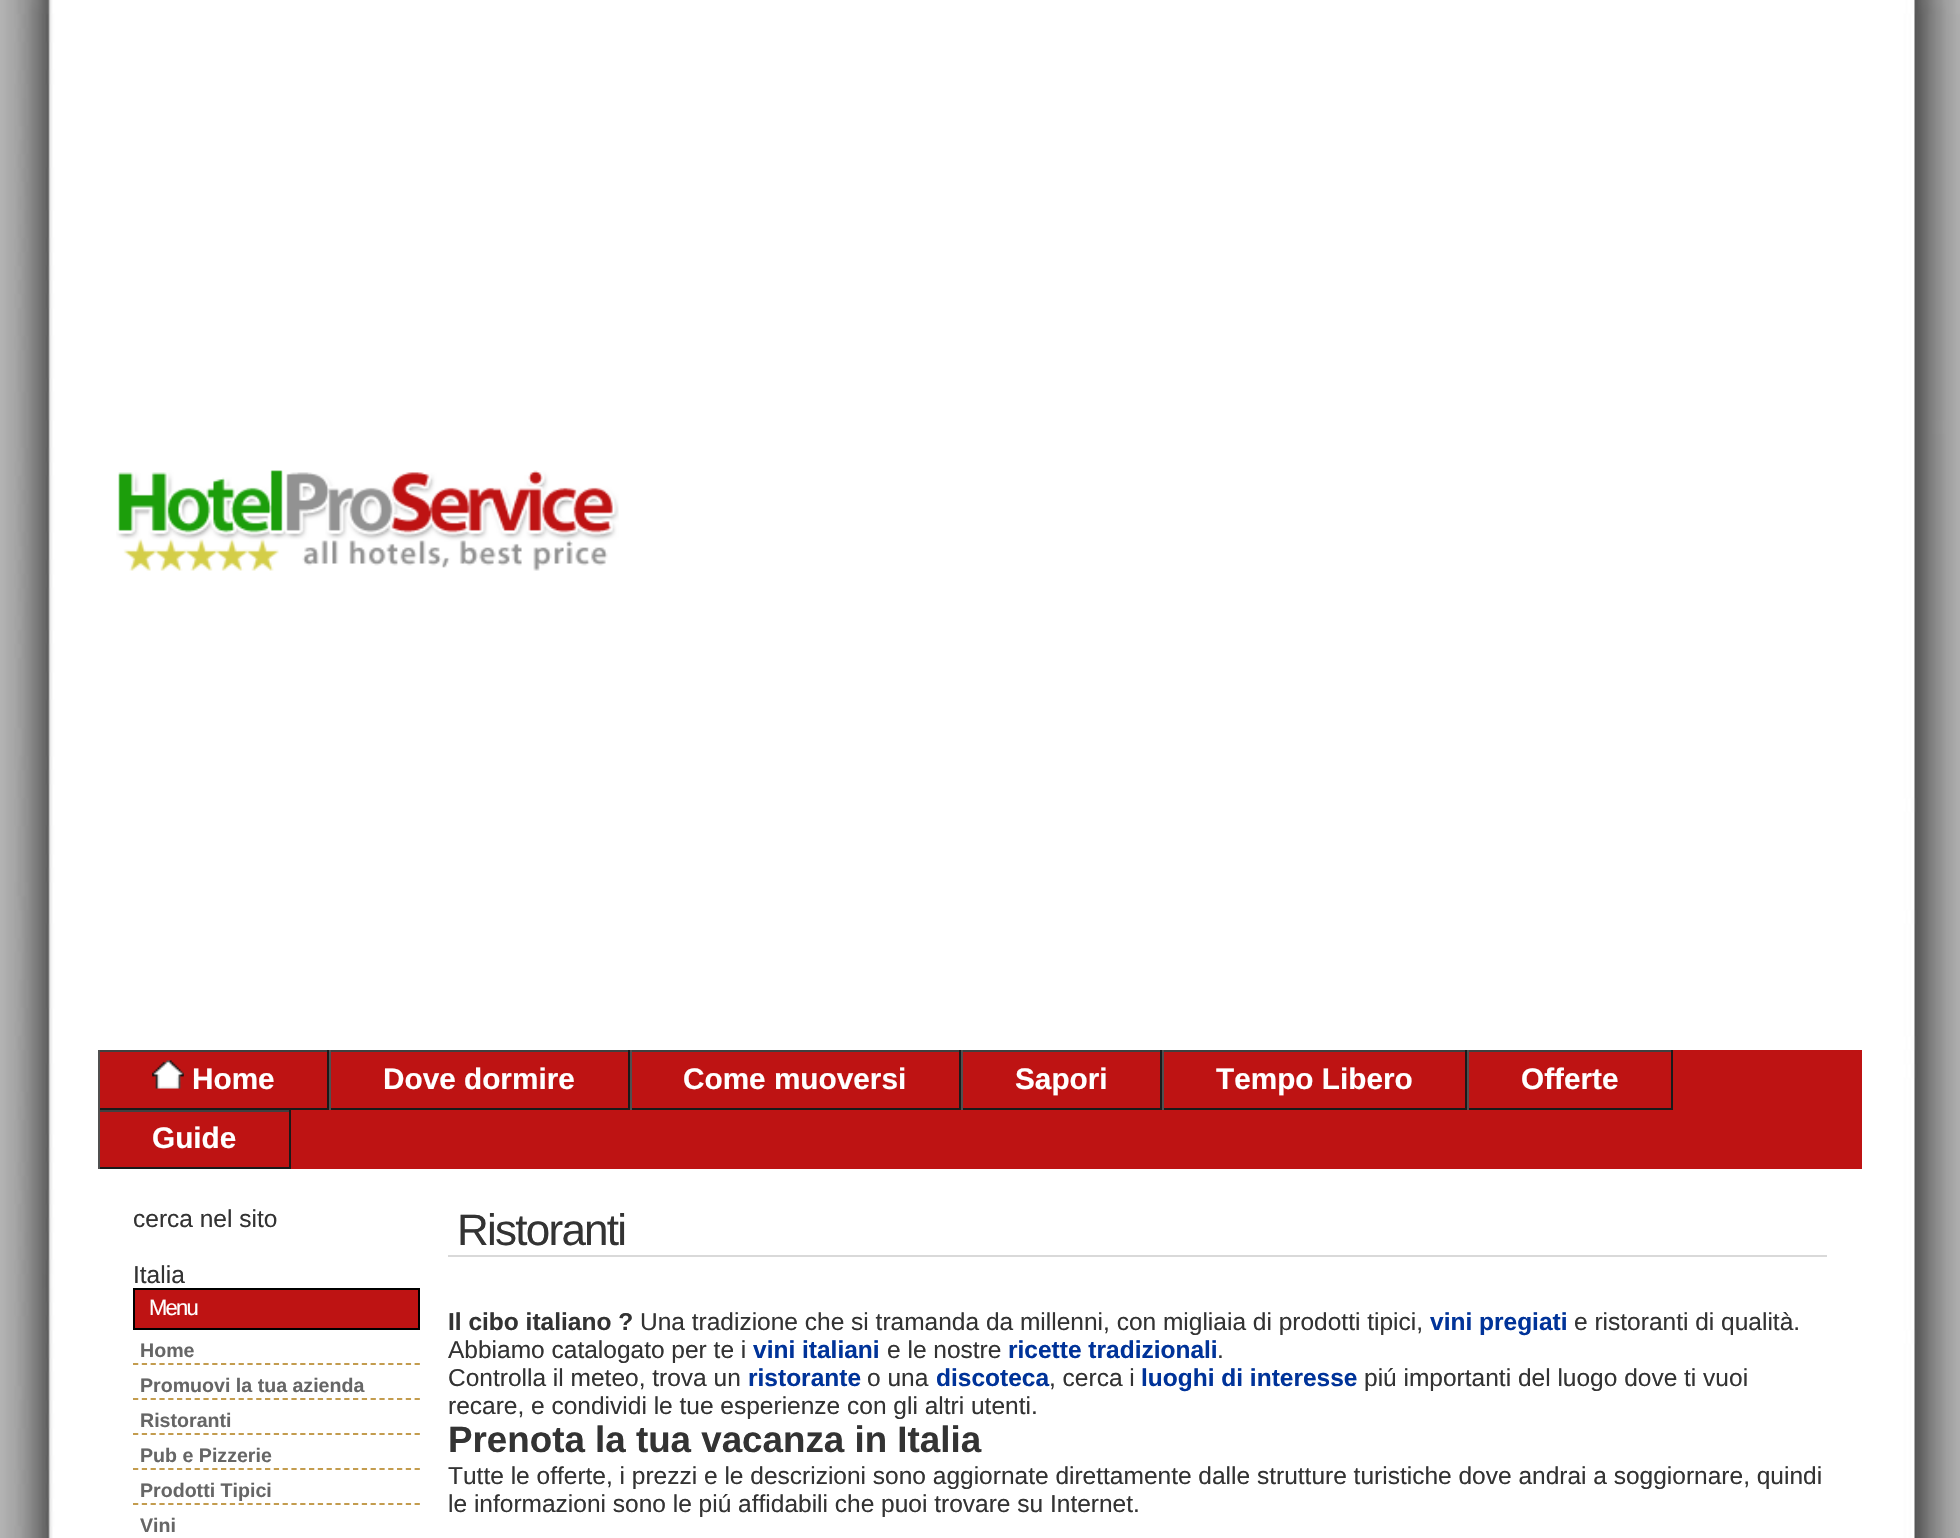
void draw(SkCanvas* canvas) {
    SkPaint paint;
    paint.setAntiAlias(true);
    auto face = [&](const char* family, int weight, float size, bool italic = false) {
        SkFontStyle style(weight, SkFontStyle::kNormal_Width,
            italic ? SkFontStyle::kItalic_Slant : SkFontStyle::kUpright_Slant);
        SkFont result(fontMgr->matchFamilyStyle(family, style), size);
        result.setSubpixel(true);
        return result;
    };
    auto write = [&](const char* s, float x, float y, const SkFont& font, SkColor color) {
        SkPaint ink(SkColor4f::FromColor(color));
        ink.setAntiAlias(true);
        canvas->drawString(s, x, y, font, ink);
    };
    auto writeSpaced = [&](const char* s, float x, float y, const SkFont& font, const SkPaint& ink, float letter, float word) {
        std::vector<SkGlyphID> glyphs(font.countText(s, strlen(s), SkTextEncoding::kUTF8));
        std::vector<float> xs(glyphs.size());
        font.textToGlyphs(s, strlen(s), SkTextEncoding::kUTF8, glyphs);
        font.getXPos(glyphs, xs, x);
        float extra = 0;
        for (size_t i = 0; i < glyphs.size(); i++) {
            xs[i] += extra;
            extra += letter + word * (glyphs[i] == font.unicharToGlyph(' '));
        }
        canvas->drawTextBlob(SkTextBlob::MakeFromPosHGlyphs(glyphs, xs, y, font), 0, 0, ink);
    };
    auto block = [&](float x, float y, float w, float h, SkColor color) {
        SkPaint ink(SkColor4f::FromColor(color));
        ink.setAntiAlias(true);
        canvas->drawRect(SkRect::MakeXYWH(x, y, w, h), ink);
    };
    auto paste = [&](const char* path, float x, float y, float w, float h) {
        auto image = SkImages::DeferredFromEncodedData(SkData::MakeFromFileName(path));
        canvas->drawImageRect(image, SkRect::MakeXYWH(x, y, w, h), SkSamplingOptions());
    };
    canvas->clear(SK_ColorWHITE);
    paste("pic1.png", 0, 0, 1960, 1538);
    paste("pic2.png", 116, 470, 503, 101);
    block(100, 1050, 1762, 119, SkColorSetRGB(190, 19, 19));
    block(98, 1050, 1575, 2, SkColorSetRGB(64, 64, 64));
    block(327, 1050, 2, 60, SkColorSetRGB(26, 26, 26));
    block(98, 1108, 231, 2, SkColorSetRGB(26, 26, 26));
    block(98, 1050, 2, 60, SkColorSetRGB(80, 80, 80));
    paste("pic3.png", 152, 1060, 32, 29);
    auto kFont1 = face("Liberation Sans", 700, 29.75f);
    write("Home", 192, 1089, kFont1, SK_ColorWHITE);
    block(628, 1050, 2, 60, SkColorSetRGB(26, 26, 26));
    block(329, 1108, 301, 2, SkColorSetRGB(26, 26, 26));
    block(329, 1050, 2, 60, SkColorSetRGB(80, 80, 80));
    write("Dove dormire", 383, 1089, kFont1, SK_ColorWHITE);
    block(959, 1050, 2, 60, SkColorSetRGB(26, 26, 26));
    block(630, 1108, 331, 2, SkColorSetRGB(26, 26, 26));
    block(630, 1050, 2, 60, SkColorSetRGB(80, 80, 80));
    write("Come muoversi", 683, 1089, kFont1, SK_ColorWHITE);
    block(1160, 1050, 2, 60, SkColorSetRGB(26, 26, 26));
    block(961, 1108, 201, 2, SkColorSetRGB(26, 26, 26));
    block(961, 1050, 2, 60, SkColorSetRGB(80, 80, 80));
    write("Sapori", 1015, 1089, kFont1, SK_ColorWHITE);
    block(1465, 1050, 2, 60, SkColorSetRGB(26, 26, 26));
    block(1162, 1108, 305, 2, SkColorSetRGB(26, 26, 26));
    block(1162, 1050, 2, 60, SkColorSetRGB(80, 80, 80));
    write("Tempo Libero", 1216, 1089, kFont1, SK_ColorWHITE);
    block(1671, 1050, 2, 60, SkColorSetRGB(26, 26, 26));
    block(1467, 1108, 206, 2, SkColorSetRGB(26, 26, 26));
    block(1467, 1050, 2, 60, SkColorSetRGB(80, 80, 80));
    write("Offerte", 1521, 1089, kFont1, SK_ColorWHITE);
    block(98, 1110, 193, 2, SkColorSetRGB(64, 64, 64));
    block(289, 1110, 2, 59, SkColorSetRGB(26, 26, 26));
    block(98, 1167, 193, 2, SkColorSetRGB(26, 26, 26));
    block(98, 1110, 2, 59, SkColorSetRGB(80, 80, 80));
    write("Guide", 152, 1148, kFont1, SK_ColorWHITE);
    auto kFont2 = face("Liberation Sans", 400, 24.5f);
    write("cerca nel sito", 133, 1227, kFont2, SkColorSetRGB(51, 51, 51));
    write("Italia", 133, 1283, kFont2, SkColorSetRGB(51, 51, 51));
    paint.setColor(SkColorSetRGB(190, 19, 19));
    canvas->drawRect(SkRect::MakeXYWH(134, 1289, 285, 40), paint);
    paint.setStyle(SkPaint::kStroke_Style);
    paint.setStrokeWidth(2);
    paint.setColor(SK_ColorBLACK);
    canvas->drawRect(SkRect::MakeXYWH(134, 1289, 285, 40), paint);
    auto kFont3 = face("Liberation Sans", 400, 22);
    paint.setStyle(SkPaint::kFill_Style);
    paint.setColor(SK_ColorWHITE);
    writeSpaced("Menu", 149, 1315, kFont3, paint, -1.75f, 0);
    paint.setStyle(SkPaint::kStroke_Style);
    paint.setStrokeWidth(1.8f);
    paint.setColor(SkColorSetRGB(195, 156, 78));
    paint.setPathEffect(SkDashPathEffect::Make({{5.25f, 3.55f}}, 0));
    canvas->drawPath(SkPathBuilder().moveTo(133, 1364).lineTo(420, 1364).detach(), paint);
    paint.setPathEffect(nullptr);
    auto kFont4 = face("Liberation Sans", 700, 19.6f);
    write("Home", 140, 1357, kFont4, SkColorSetRGB(102, 102, 102));
    paint.setPathEffect(SkDashPathEffect::Make({{5.25f, 3.55f}}, 0));
    canvas->drawPath(SkPathBuilder().moveTo(133, 1399).lineTo(420, 1399).detach(), paint);
    paint.setPathEffect(nullptr);
    write("Promuovi la tua azienda", 140, 1392, kFont4, SkColorSetRGB(102, 102, 102));
    paint.setPathEffect(SkDashPathEffect::Make({{5.25f, 3.55f}}, 0));
    canvas->drawPath(SkPathBuilder().moveTo(133, 1434).lineTo(420, 1434).detach(), paint);
    paint.setPathEffect(nullptr);
    write("Ristoranti", 140, 1427, kFont4, SkColorSetRGB(102, 102, 102));
    paint.setPathEffect(SkDashPathEffect::Make({{5.25f, 3.55f}}, 0));
    canvas->drawPath(SkPathBuilder().moveTo(133, 1469).lineTo(420, 1469).detach(), paint);
    paint.setPathEffect(nullptr);
    write("Pub e Pizzerie", 140, 1462, kFont4, SkColorSetRGB(102, 102, 102));
    paint.setPathEffect(SkDashPathEffect::Make({{5.25f, 3.55f}}, 0));
    canvas->drawPath(SkPathBuilder().moveTo(133, 1504).lineTo(420, 1504).detach(), paint);
    paint.setPathEffect(nullptr);
    write("Prodotti Tipici", 140, 1497, kFont4, SkColorSetRGB(102, 102, 102));
    write("Vini", 140, 1532, kFont4, SkColorSetRGB(102, 102, 102));
    block(448, 1255, 1379, 2, SkColorSetRGB(217, 217, 217));
    auto kFont5 = face("Liberation Sans", 400, 44);
    paint.setStyle(SkPaint::kFill_Style);
    paint.setColor(SkColorSetRGB(51, 51, 51));
    writeSpaced("Ristoranti", 457, 1245, kFont5, paint, -1.75f, 0);
    auto kFont6 = face("Liberation Sans", 700, 24.5f);
    write("Il cibo italiano ?", 448, 1330, kFont6, SkColorSetRGB(51, 51, 51));
    write("Una tradizione che si tramanda da millenni, con migliaia di prodotti tipici,", 640, 1330, kFont2, SkColorSetRGB(51, 51, 51));
    write("vini pregiati", 1430, 1330, kFont6, SkColorSetRGB(0, 51, 153));
    write("e ristoranti di qualità.", 1574, 1330, kFont2, SkColorSetRGB(51, 51, 51));
    write("Abbiamo catalogato per te i", 448, 1358, kFont2, SkColorSetRGB(51, 51, 51));
    write("vini italiani", 753, 1358, kFont6, SkColorSetRGB(0, 51, 153));
    write("e le nostre", 887, 1358, kFont2, SkColorSetRGB(51, 51, 51));
    write("ricette tradizionali", 1008, 1358, kFont6, SkColorSetRGB(0, 51, 153));
    write(".", 1217, 1358, kFont2, SkColorSetRGB(51, 51, 51));
    write("Controlla il meteo, trova un", 448, 1386, kFont2, SkColorSetRGB(51, 51, 51));
    write("ristorante", 748, 1386, kFont6, SkColorSetRGB(0, 51, 153));
    write("o una", 867, 1386, kFont2, SkColorSetRGB(51, 51, 51));
    write("discoteca", 936, 1386, kFont6, SkColorSetRGB(0, 51, 153));
    write(", cerca i", 1049, 1386, kFont2, SkColorSetRGB(51, 51, 51));
    write("luoghi di interesse", 1141, 1386, kFont6, SkColorSetRGB(0, 51, 153));
    write("piú importanti del luogo dove ti vuoi", 1364, 1386, kFont2, SkColorSetRGB(51, 51, 51));
    write("recare, e condividi le tue esperienze con gli altri utenti.", 448, 1414, kFont2, SkColorSetRGB(51, 51, 51));
    auto kFont7 = face("Liberation Sans", 700, 36.75f);
    write("Prenota la tua vacanza in Italia", 448, 1452, kFont7, SkColorSetRGB(51, 51, 51));
    write("Tutte le offerte, i prezzi e le descrizioni sono aggiornate direttamente dalle strutture turistiche dove andrai a soggiornare, quindi", 448, 1484, kFont2, SkColorSetRGB(51, 51, 51));
    write("le informazioni sono le piú affidabili che puoi trovare su Internet.", 448, 1512, kFont2, SkColorSetRGB(51, 51, 51));
}
